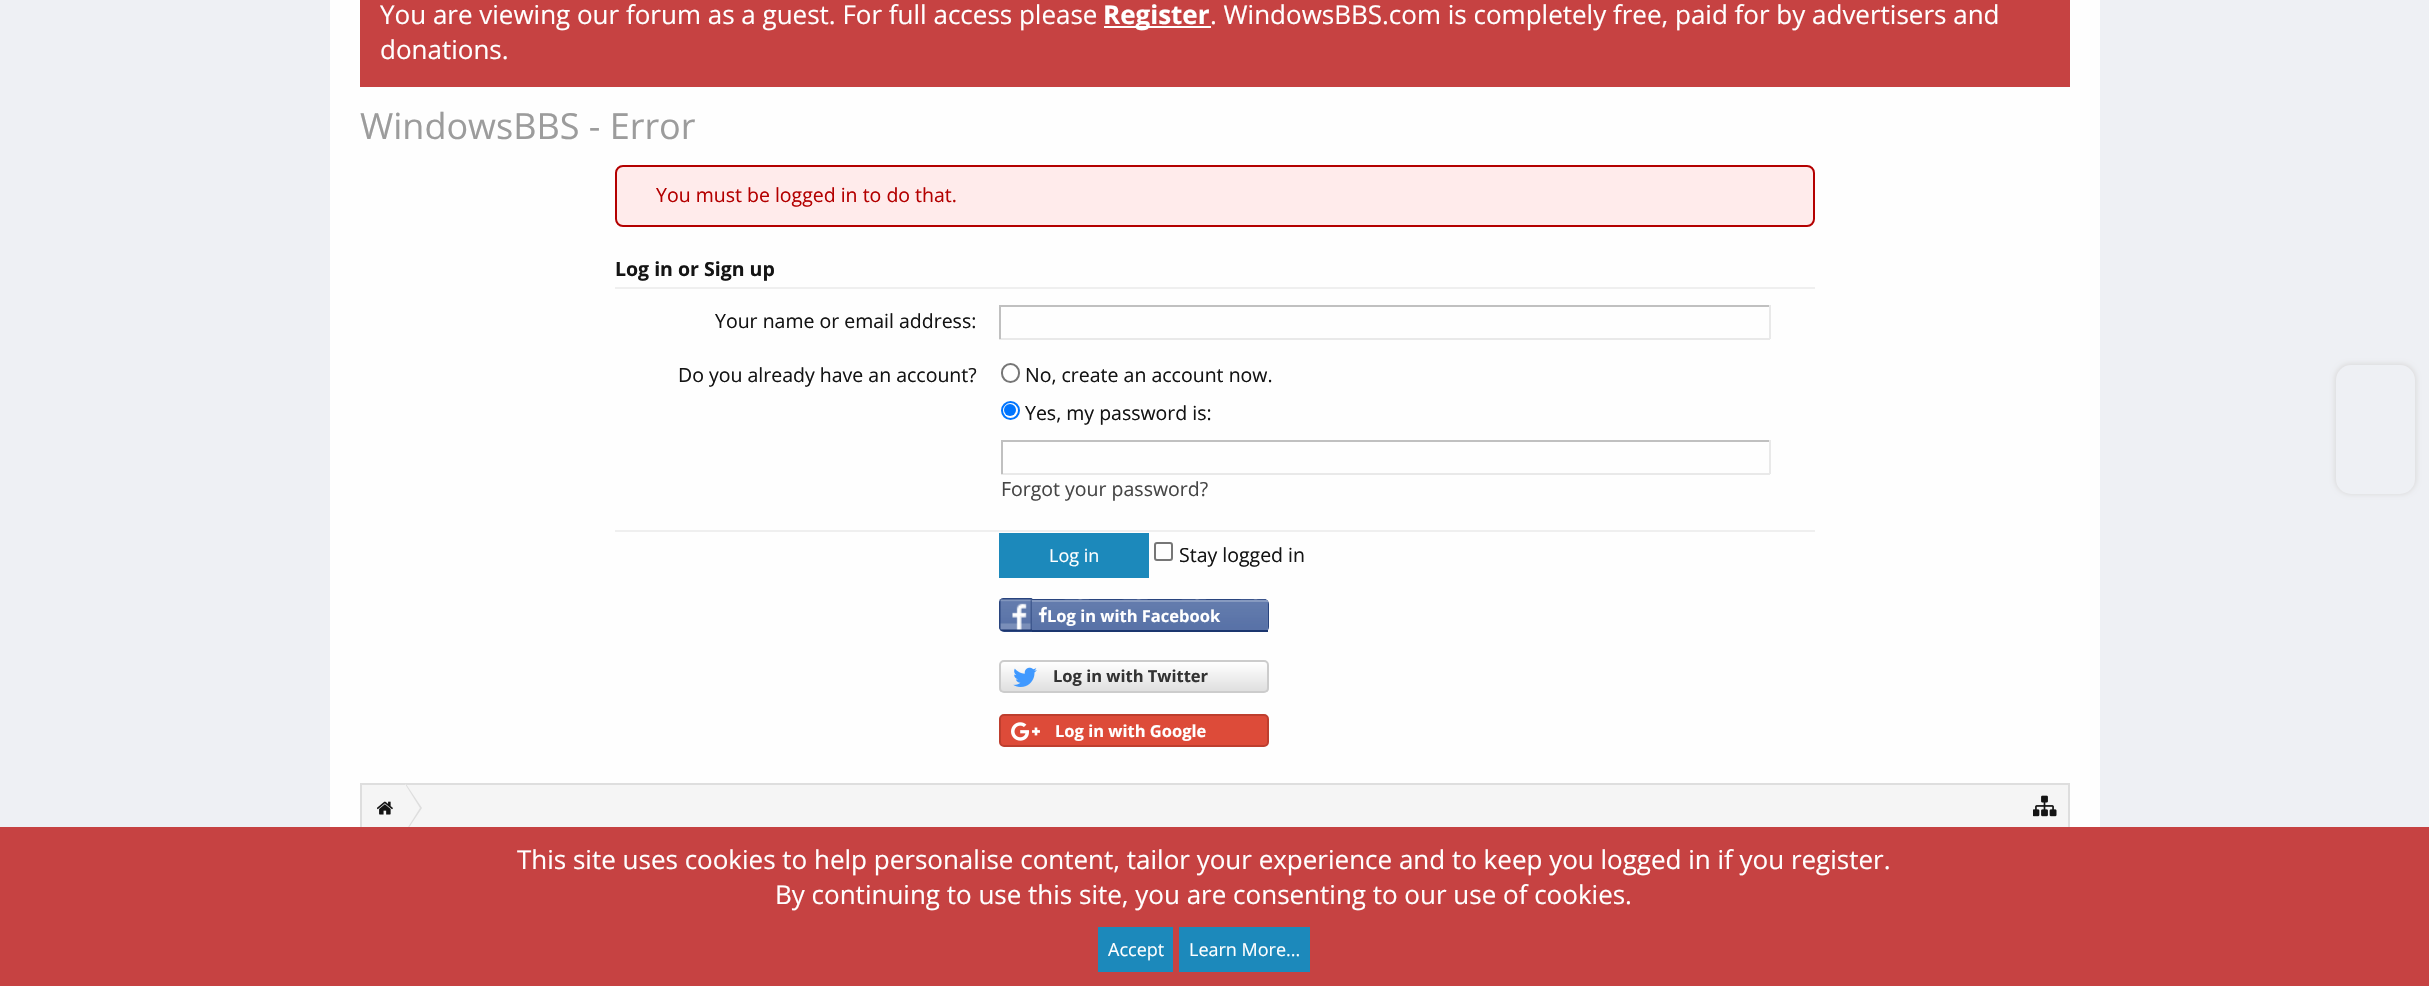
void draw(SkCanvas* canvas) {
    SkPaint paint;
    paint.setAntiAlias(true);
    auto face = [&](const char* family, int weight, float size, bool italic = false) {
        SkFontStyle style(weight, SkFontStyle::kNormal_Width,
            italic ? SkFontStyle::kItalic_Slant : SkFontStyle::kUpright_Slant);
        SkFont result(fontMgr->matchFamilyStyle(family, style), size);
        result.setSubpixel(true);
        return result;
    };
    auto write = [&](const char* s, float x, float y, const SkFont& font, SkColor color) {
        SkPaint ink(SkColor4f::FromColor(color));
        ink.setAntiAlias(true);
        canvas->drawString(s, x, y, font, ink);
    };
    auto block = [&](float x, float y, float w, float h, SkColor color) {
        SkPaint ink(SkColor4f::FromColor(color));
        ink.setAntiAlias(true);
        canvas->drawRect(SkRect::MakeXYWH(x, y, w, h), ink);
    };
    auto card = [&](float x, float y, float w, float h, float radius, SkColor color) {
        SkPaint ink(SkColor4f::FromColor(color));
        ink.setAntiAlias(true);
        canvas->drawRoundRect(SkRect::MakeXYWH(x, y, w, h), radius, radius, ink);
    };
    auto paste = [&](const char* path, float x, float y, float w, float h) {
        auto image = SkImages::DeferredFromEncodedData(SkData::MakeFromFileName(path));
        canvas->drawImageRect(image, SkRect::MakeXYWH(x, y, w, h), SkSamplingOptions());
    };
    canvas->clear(SkColorSetRGB(238, 240, 244));
    block(330, 0, 1770, 827, SkColorSetRGB(254, 254, 254));
    block(360, 0, 1710, 87, SkColorSetRGB(198, 66, 66));
    auto kFont1 = face("Open Sans", 400, 26);
    write("You are viewing our forum as a guest. For full access please", 380, 24, kFont1, SK_ColorWHITE);
    block(1104, 26, 107, 2, SK_ColorWHITE);
    auto kFont2 = face("Open Sans", 700, 26);
    write("Register", 1103, 24, kFont2, SK_ColorWHITE);
    write(". WindowsBBS.com is completely free, paid for by advertisers and", 1210, 24, kFont1, SK_ColorWHITE);
    write("donations.", 380, 59, kFont1, SK_ColorWHITE);
    auto kFont3 = face("Open Sans", 400, 36);
    write("WindowsBBS - Error", 360, 139, kFont3, SkColorSetRGB(156, 156, 156));
    paint.setColor(SkColorSetRGB(255, 235, 235));
    canvas->drawRoundRect(SkRect::MakeXYWH(616, 166, 1198, 60), 7, 7, paint);
    paint.setStyle(SkPaint::kStroke_Style);
    paint.setStrokeWidth(2);
    paint.setColor(SkColorSetRGB(180, 0, 0));
    canvas->drawRoundRect(SkRect::MakeXYWH(616, 166, 1198, 60), 7, 7, paint);
    auto kFont4 = face("Open Sans", 400, 19.5f);
    write("You must be logged in to do that.", 656, 202, kFont4, SkColorSetRGB(180, 0, 0));
    block(615, 287, 1200, 2, SkColorSetRGB(239, 239, 239));
    auto kFont5 = face("Open Sans", 700, 19.5f);
    write("Log in or Sign up", 615, 276, kFont5, SkColorSetRGB(20, 20, 20));
    write("Your name or email address:", 715, 328, kFont4, SkColorSetRGB(20, 20, 20));
    block(999, 305, 771, 2, SkColorSetRGB(192, 192, 192));
    block(1769, 305, 2, 34, SkColorSetRGB(233, 233, 233));
    block(999, 338, 771, 2, SkColorSetRGB(233, 233, 233));
    block(999, 305, 2, 34, SkColorSetRGB(192, 192, 192));
    write("Do you already have an account?", 678, 382, kFont4, SkColorSetRGB(20, 20, 20));
    paint.setColor(SkColorSetRGB(118, 118, 118));
    canvas->drawRoundRect(SkRect::MakeXYWH(1002, 364, 17, 18), 8.5f, 8.5f, paint);
    write("No, create an account now.", 1025, 382, kFont4, SkColorSetRGB(20, 20, 20));
    paint.setColor(SkColorSetRGB(0, 117, 255));
    canvas->drawCircle(1010.5f, 410.5f, 8.5f, paint);
    paint.setStyle(SkPaint::kFill_Style);
    canvas->drawCircle(1010, 410, 6, paint);
    write("Yes, my password is:", 1025, 420, kFont4, SkColorSetRGB(20, 20, 20));
    block(1001, 440, 769, 2, SkColorSetRGB(192, 192, 192));
    block(1769, 440, 2, 34, SkColorSetRGB(233, 233, 233));
    block(1001, 473, 769, 2, SkColorSetRGB(233, 233, 233));
    block(1001, 440, 2, 34, SkColorSetRGB(192, 192, 192));
    write("Forgot your password?", 1001, 496, kFont4, SkColorSetRGB(70, 70, 70));
    block(615, 530, 1200, 2, SkColorSetRGB(239, 239, 239));
    block(999, 533, 150, 45, SkColorSetRGB(28, 137, 187));
    auto kFont6 = face("Open Sans", 400, 18);
    write("Log in", 1049, 562, kFont6, SK_ColorWHITE);
    paint.setStyle(SkPaint::kStroke_Style);
    paint.setColor(SkColorSetRGB(118, 118, 118));
    canvas->drawRoundRect(SkRect::MakeXYWH(1155, 543, 17, 17), 2, 2, paint);
    write("Stay logged in", 1179, 562, kFont4, SkColorSetRGB(20, 20, 20));
    card(999, 599, 270, 33, 5, SkColorSetRGB(41, 68, 126));
    paste("pic1.png", 999, 598, 34, 33);
    block(1267, 602, 1, 28, SkColorSetRGB(95, 120, 171));
    paste("pic2.png", 1032, 599, 235, 31);
    block(1032, 600, 236, 2, SkColorSetRGB(135, 154, 192));
    block(1032, 630, 236, 2, SkColorSetRGB(26, 53, 110));
    paste("pic3.png", 1038, 606, 9, 17);
    auto kFont7 = face("Open Sans", 700, 16.5f);
    write("Log in with Facebook", 1047, 622, kFont7, SK_ColorWHITE);
    canvas->save();
    canvas->clipPath(SkPathBuilder().moveTo(1004, 660).lineTo(1264, 660).cubicTo(1267, 660, 1269, 662, 1269, 665).lineTo(1269, 688).cubicTo(1269, 691, 1267, 693, 1264, 693).lineTo(1004, 693).cubicTo(1001, 693, 999, 691, 999, 688).lineTo(999, 665).cubicTo(999, 662, 1001, 660, 1004, 660).close().detach(), true);
    paint.setStyle(SkPaint::kFill_Style);
    {
        const SkColor colors[] = {SK_ColorWHITE, SkColorSetRGB(222, 222, 222)};
        const float stops[] = {0, 1};
        const SkPoint ends[] = {{1134, 662}, {1134, 692}};
        paint.setShader(SkGradientShader::MakeLinear(ends, colors, stops, 2, SkTileMode::kClamp));
        paint.setAlpha(255);
    }
    canvas->drawRect(SkRect::MakeXYWH(999, 662, 270, 30), paint);
    canvas->restore();
    paint.setStyle(SkPaint::kStroke_Style);
    paint.setShader(nullptr);
    paint.setColor(SkColorSetRGB(204, 204, 204));
    canvas->drawRoundRect(SkRect::MakeXYWH(1000, 661, 268, 31), 4, 4, paint);
    paste("pic4.png", 1013, 667, 24, 20);
    write("Log in with Twitter", 1053, 682, kFont7, SkColorSetRGB(51, 51, 51));
    paint.setStyle(SkPaint::kFill_Style);
    paint.setColor(SkColorSetRGB(221, 75, 57));
    canvas->drawRoundRect(SkRect::MakeXYWH(1000, 715, 268, 31), 4, 4, paint);
    paint.setStyle(SkPaint::kStroke_Style);
    paint.setColor(SkColorSetRGB(190, 62, 46));
    canvas->drawRoundRect(SkRect::MakeXYWH(1000, 715, 268, 31), 4, 4, paint);
    paste("pic5.png", 1011, 722, 29, 19);
    write("Log in with Google", 1055, 737, kFont7, SK_ColorWHITE);
    block(362, 785, 1706, 42, SkColorSetRGB(245, 245, 245));
    paint.setColor(SkColorSetRGB(222, 222, 222));
    canvas->drawRect(SkRect::MakeXYWH(361, 784, 1708, 49), paint);
    paint.setStyle(SkPaint::kFill_Style);
    paint.setColor(SkColorSetRGB(245, 245, 245));
    canvas->drawPath(SkPathBuilder().moveTo(370, 785).lineTo(408, 785).lineTo(408, 834).lineTo(370, 834).cubicTo(365.5f, 834, 362, 830.5f, 362, 826).lineTo(362, 793).cubicTo(362, 788.5f, 365.5f, 785, 370, 785).close().detach(), paint);
    paste("pic6.png", 377, 801, 16, 14);
    paint.setColor(SkColorSetRGB(222, 222, 222));
    canvas->drawPath(SkPathBuilder().moveTo(406, 832).lineTo(406, 784).lineTo(422, 808).close().detach(), paint);
    paint.setColor(SkColorSetRGB(245, 245, 245));
    canvas->drawPath(SkPathBuilder().moveTo(405, 832).lineTo(405, 784).lineTo(420, 808).close().detach(), paint);
    paste("pic7.png", 2033, 795, 24, 22);
    paint.setColor(SkColorSetRGB(223, 223, 224));
    paint.setMaskFilter(SkMaskFilter::MakeBlur(kNormal_SkBlurStyle, 2));
    canvas->drawRoundRect(SkRect::MakeXYWH(2334, 363, 83, 132), 17, 17, paint);
    paint.setMaskFilter(nullptr);
    card(2336, 365, 79, 129, 15, SkColorSetRGB(238, 240, 244));
    block(0, 827, 2429, 159, SkColorSetRGB(198, 66, 66));
    write("This site uses cookies to help personalise content, tailor your experience and to keep you logged in if you register.", 517, 869, kFont1, SK_ColorWHITE);
    write("By continuing to use this site, you are consenting to our use of cookies.", 775, 904, kFont1, SK_ColorWHITE);
    block(1098, 927, 75, 45, SkColorSetRGB(28, 137, 187));
    write("Accept", 1108, 956, kFont6, SK_ColorWHITE);
    block(1179, 927, 131, 45, SkColorSetRGB(28, 137, 187));
    write("Learn More...", 1189, 956, kFont6, SK_ColorWHITE);
}
